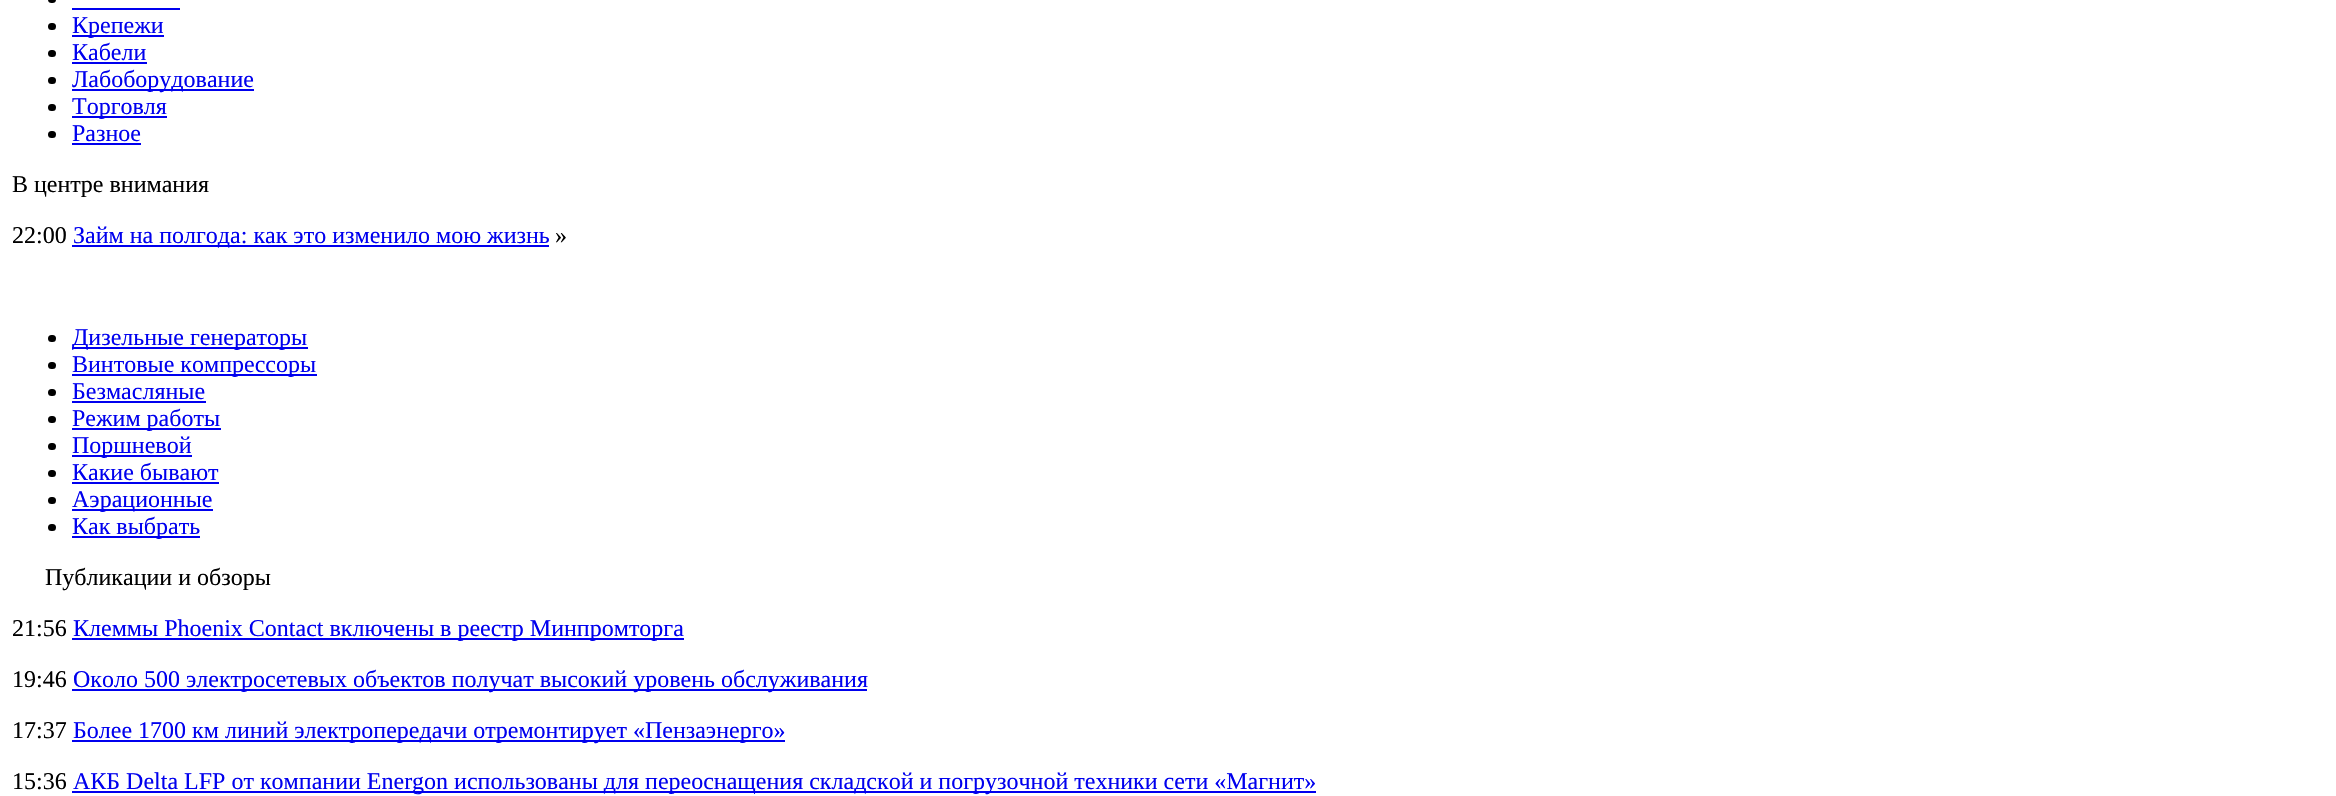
void draw(SkCanvas* canvas) {
    SkPaint paint;
    paint.setAntiAlias(true);
    auto face = [&](const char* family, int weight, float size, bool italic = false) {
        SkFontStyle style(weight, SkFontStyle::kNormal_Width,
            italic ? SkFontStyle::kItalic_Slant : SkFontStyle::kUpright_Slant);
        SkFont result(fontMgr->matchFamilyStyle(family, style), size);
        result.setSubpixel(true);
        return result;
    };
    auto write = [&](const char* s, float x, float y, const SkFont& font, SkColor color) {
        SkPaint ink(SkColor4f::FromColor(color));
        ink.setAntiAlias(true);
        canvas->drawString(s, x, y, font, ink);
    };
    auto block = [&](float x, float y, float w, float h, SkColor color) {
        SkPaint ink(SkColor4f::FromColor(color));
        ink.setAntiAlias(true);
        canvas->drawRect(SkRect::MakeXYWH(x, y, w, h), ink);
    };
    auto card = [&](float x, float y, float w, float h, float radius, SkColor color) {
        SkPaint ink(SkColor4f::FromColor(color));
        ink.setAntiAlias(true);
        canvas->drawRoundRect(SkRect::MakeXYWH(x, y, w, h), radius, radius, ink);
    };
    canvas->clear(SK_ColorWHITE);
    card(48, -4, 8, 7, 3.5f, SK_ColorBLACK);
    block(72, 8, 108, 2, SkColorSetRGB(0, 0, 238));
    card(48, 23, 8, 7, 3.5f, SK_ColorBLACK);
    block(72, 35, 92, 2, SkColorSetRGB(0, 0, 238));
    auto kFont1 = face("Liberation Serif", 400, 24);
    write("Крепежи", 72, 33, kFont1, SkColorSetRGB(0, 0, 238));
    card(48, 50, 8, 7, 3.5f, SK_ColorBLACK);
    write("Кабели", 72, 60, kFont1, SkColorSetRGB(0, 0, 238));
    block(72, 62, 75, 2, SkColorSetRGB(0, 0, 238));
    card(48, 77, 8, 7, 3.5f, SK_ColorBLACK);
    block(72, 89, 182, 2, SkColorSetRGB(0, 0, 238));
    write("Лабоборудование", 72, 87, kFont1, SkColorSetRGB(0, 0, 238));
    card(48, 104, 8, 7, 3.5f, SK_ColorBLACK);
    block(72, 116, 95, 2, SkColorSetRGB(0, 0, 238));
    write("Торговля", 72, 114, kFont1, SkColorSetRGB(0, 0, 238));
    card(48, 131, 8, 7, 3.5f, SK_ColorBLACK);
    write("Разное", 72, 141, kFont1, SkColorSetRGB(0, 0, 238));
    block(72, 143, 69, 2, SkColorSetRGB(0, 0, 238));
    write("В центре внимания", 12, 192, kFont1, SK_ColorBLACK);
    write("22:00", 12, 243, kFont1, SK_ColorBLACK);
    block(72, 245, 477, 2, SkColorSetRGB(0, 0, 238));
    write("Займ на полгода: как это изменило мою жизнь", 73, 243, kFont1, SkColorSetRGB(0, 0, 238));
    write("»", 555, 243, kFont1, SK_ColorBLACK);
    card(48, 335, 8, 7, 3.5f, SK_ColorBLACK);
    block(72, 347, 236, 2, SkColorSetRGB(0, 0, 238));
    write("Дизельные генераторы", 72, 345, kFont1, SkColorSetRGB(0, 0, 238));
    card(48, 362, 8, 7, 3.5f, SK_ColorBLACK);
    block(72, 374, 245, 2, SkColorSetRGB(0, 0, 238));
    write("Винтовые компрессоры", 72, 372, kFont1, SkColorSetRGB(0, 0, 238));
    card(48, 389, 8, 7, 3.5f, SK_ColorBLACK);
    write("Безмасляные", 72, 399, kFont1, SkColorSetRGB(0, 0, 238));
    block(72, 401, 134, 2, SkColorSetRGB(0, 0, 238));
    card(48, 416, 8, 7, 3.5f, SK_ColorBLACK);
    block(72, 428, 149, 2, SkColorSetRGB(0, 0, 238));
    write("Режим работы", 72, 426, kFont1, SkColorSetRGB(0, 0, 238));
    card(48, 443, 8, 7, 3.5f, SK_ColorBLACK);
    block(72, 455, 120, 2, SkColorSetRGB(0, 0, 238));
    write("Поршневой", 72, 453, kFont1, SkColorSetRGB(0, 0, 238));
    card(48, 470, 8, 7, 3.5f, SK_ColorBLACK);
    write("Какие бывают", 72, 480, kFont1, SkColorSetRGB(0, 0, 238));
    block(72, 482, 147, 2, SkColorSetRGB(0, 0, 238));
    card(48, 497, 8, 7, 3.5f, SK_ColorBLACK);
    block(72, 509, 141, 2, SkColorSetRGB(0, 0, 238));
    write("Аэрационные", 72, 507, kFont1, SkColorSetRGB(0, 0, 238));
    card(48, 524, 8, 7, 3.5f, SK_ColorBLACK);
    block(72, 536, 128, 2, SkColorSetRGB(0, 0, 238));
    write("Как выбрать", 72, 534, kFont1, SkColorSetRGB(0, 0, 238));
    write("Публикации и обзоры", 45, 585, kFont1, SK_ColorBLACK);
    write("21:56", 12, 636, kFont1, SK_ColorBLACK);
    block(72, 638, 612, 2, SkColorSetRGB(0, 0, 238));
    write("Клеммы Phoenix Contact включены в реестр Минпромторга", 73, 636, kFont1, SkColorSetRGB(0, 0, 238));
    write("19:46", 12, 687, kFont1, SK_ColorBLACK);
    block(72, 689, 795, 2, SkColorSetRGB(0, 0, 238));
    write("Около 500 электросетевых объектов получат высокий уровень обслуживания", 73, 687, kFont1, SkColorSetRGB(0, 0, 238));
    write("17:37", 12, 738, kFont1, SK_ColorBLACK);
    block(72, 740, 713, 2, SkColorSetRGB(0, 0, 238));
    write("Более 1700 км линий электропередачи отремонтирует «Пензаэнерго»", 73, 738, kFont1, SkColorSetRGB(0, 0, 238));
    write("15:36", 12, 789, kFont1, SK_ColorBLACK);
    block(72, 791, 1244, 2, SkColorSetRGB(0, 0, 238));
    write("АКБ Delta LFP от компании Energon использованы для переоснащения складской и погрузочной техники сети «Магнит»", 73, 789, kFont1, SkColorSetRGB(0, 0, 238));
}
